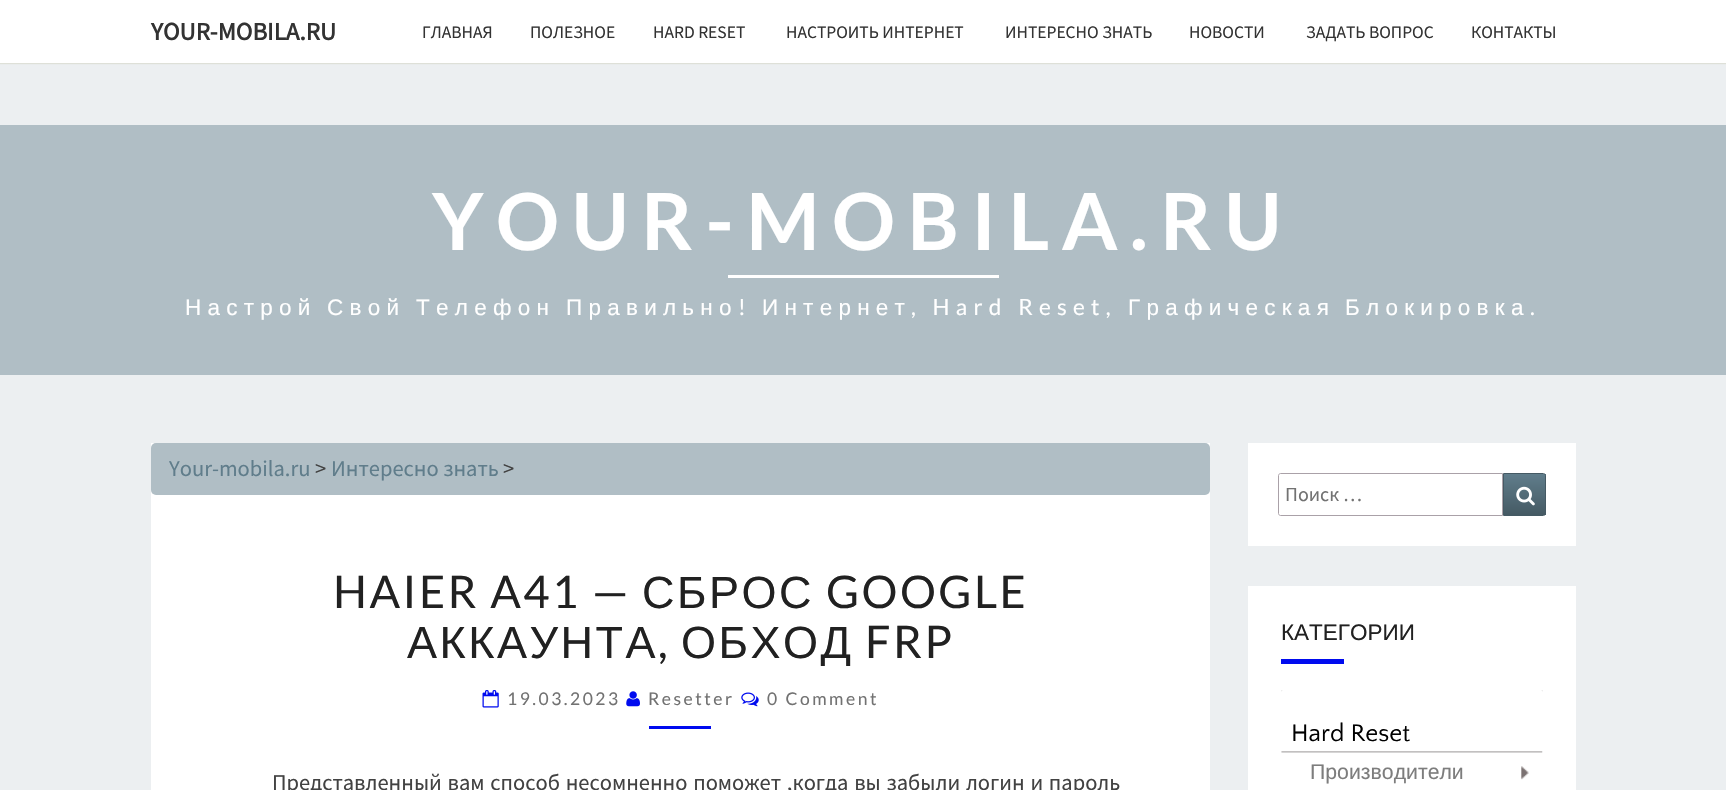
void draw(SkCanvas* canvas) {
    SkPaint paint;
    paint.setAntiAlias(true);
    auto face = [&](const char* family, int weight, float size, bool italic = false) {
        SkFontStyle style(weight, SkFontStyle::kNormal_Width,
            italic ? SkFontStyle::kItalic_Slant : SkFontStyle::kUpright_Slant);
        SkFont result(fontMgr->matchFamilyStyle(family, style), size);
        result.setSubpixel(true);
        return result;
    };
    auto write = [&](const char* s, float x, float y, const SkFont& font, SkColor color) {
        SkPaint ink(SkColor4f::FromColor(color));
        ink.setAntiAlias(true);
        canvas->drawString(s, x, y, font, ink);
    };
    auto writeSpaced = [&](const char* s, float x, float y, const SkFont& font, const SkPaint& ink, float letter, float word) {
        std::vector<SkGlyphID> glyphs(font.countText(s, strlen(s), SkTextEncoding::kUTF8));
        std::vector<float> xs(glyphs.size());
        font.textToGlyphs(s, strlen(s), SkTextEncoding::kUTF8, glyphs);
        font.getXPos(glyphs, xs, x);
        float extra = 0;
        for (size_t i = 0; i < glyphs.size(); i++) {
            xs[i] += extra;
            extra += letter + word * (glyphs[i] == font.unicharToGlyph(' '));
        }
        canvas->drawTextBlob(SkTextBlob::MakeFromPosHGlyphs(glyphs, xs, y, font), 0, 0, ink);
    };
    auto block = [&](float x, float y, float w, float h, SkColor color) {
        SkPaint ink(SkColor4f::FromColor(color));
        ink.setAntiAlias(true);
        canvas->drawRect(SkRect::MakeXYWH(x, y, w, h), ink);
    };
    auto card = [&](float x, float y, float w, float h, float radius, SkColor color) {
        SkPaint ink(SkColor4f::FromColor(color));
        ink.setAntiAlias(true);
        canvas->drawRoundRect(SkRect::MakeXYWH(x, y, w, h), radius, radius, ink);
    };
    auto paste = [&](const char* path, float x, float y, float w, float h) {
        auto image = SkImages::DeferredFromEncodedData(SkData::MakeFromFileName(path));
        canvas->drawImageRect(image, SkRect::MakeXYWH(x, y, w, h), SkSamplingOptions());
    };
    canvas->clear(SkColorSetRGB(236, 239, 241));
    paint.setColor(SkColorSetARGB(26, 100, 100, 0));
    paint.setMaskFilter(SkMaskFilter::MakeBlur(kNormal_SkBlurStyle, 0.5f));
    canvas->drawRect(SkRect::MakeXYWH(0, 1, 1726, 63), paint);
    paint.setMaskFilter(nullptr);
    block(0, 0, 1726, 63, SK_ColorWHITE);
    auto kFont1 = face("Source Sans Pro", 700, 25);
    write("YOUR-MOBILA.RU", 151, 40, kFont1, SkColorSetRGB(51, 51, 51));
    auto kFont2 = face("Source Sans Pro", 400, 17.5f);
    write("ГЛАВНАЯ", 422, 38, kFont2, SkColorSetRGB(51, 51, 51));
    write("ПОЛЕЗНОЕ", 530, 38, kFont2, SkColorSetRGB(51, 51, 51));
    write("HARD RESET", 653, 38, kFont2, SkColorSetRGB(51, 51, 51));
    write("НАСТРОИТЬ ИНТЕРНЕТ", 786, 38, kFont2, SkColorSetRGB(51, 51, 51));
    write("ИНТЕРЕСНО ЗНАТЬ", 1005, 38, kFont2, SkColorSetRGB(51, 51, 51));
    write("НОВОСТИ", 1189, 38, kFont2, SkColorSetRGB(51, 51, 51));
    write("ЗАДАТЬ ВОПРОС", 1306, 38, kFont2, SkColorSetRGB(51, 51, 51));
    write("КОНТАКТЫ", 1471, 38, kFont2, SkColorSetRGB(51, 51, 51));
    block(0, 125, 1726, 250, SkColorSetRGB(176, 190, 197));
    auto kFont3 = face("Lato", 700, 78.75f);
    paint.setColor(SK_ColorWHITE);
    writeSpaced("YOUR-MOBILA.RU", 432, 250, kFont3, paint, 12.5f, 0);
    block(728, 275, 271, 3, SK_ColorWHITE);
    auto kFont4 = face("Liberation Sans", 400, 22.5f);
    writeSpaced("Настрой", 185, 315, kFont4, paint, 6.25f, 0);
    writeSpaced("Свой", 327, 315, kFont4, paint, 6.25f, 0);
    writeSpaced("Телефон", 416, 315, kFont4, paint, 6.25f, 0);
    writeSpaced("Правильно", 566, 315, kFont4, paint, 6.25f, 0);
    auto kFont5 = face("Lato", 400, 22.5f);
    writeSpaced("!", 738, 315, kFont5, paint, 6.25f, 0);
    writeSpaced("Интернет", 762, 315, kFont4, paint, 6.25f, 0);
    writeSpaced(", Hard Reset,", 911, 315, kFont5, paint, 6.25f, 0);
    writeSpaced("Графическая", 1128, 315, kFont4, paint, 6.25f, 0);
    writeSpaced("Блокировка", 1345, 315, kFont4, paint, 6.25f, 0);
    writeSpaced(".", 1530, 315, kFont5, paint, 6.25f, 0);
    block(151, 443, 1059, 347, SK_ColorWHITE);
    card(151, 443, 1059, 52, 5, SkColorSetRGB(176, 190, 197));
    auto kFont6 = face("Source Sans Pro", 400, 22.5f);
    write("Your-mobila.ru", 169, 476, kFont6, SkColorSetRGB(96, 125, 139));
    write(">", 315, 476, kFont6, SkColorSetRGB(66, 66, 66));
    write("Интересно знать", 331, 476, kFont6, SkColorSetRGB(96, 125, 139));
    write(">", 503, 476, kFont6, SkColorSetRGB(66, 66, 66));
    auto kFont7 = face("Lato", 400, 45);
    paint.setColor(SkColorSetRGB(33, 33, 33));
    writeSpaced("HAIER A41 —", 333, 608, kFont7, paint, 2.5f, 0);
    auto kFont8 = face("Liberation Sans", 400, 45);
    writeSpaced("СБРОС", 642, 608, kFont8, paint, 2.5f, 0);
    writeSpaced("GOOGLE", 826, 608, kFont7, paint, 2.5f, 0);
    writeSpaced("АККАУНТА", 407, 658, kFont8, paint, 2.5f, 0);
    writeSpaced(",", 658, 658, kFont7, paint, 2.5f, 0);
    canvas->save();
    canvas->clipRect(SkRect::MakeXYWH(241, 568, 879, 98));
    writeSpaced("ОБХОД", 681, 658, kFont8, paint, 2.5f, 0);
    canvas->restore();
    writeSpaced("FRP", 865, 658, kFont7, paint, 2.5f, 0);
    paste("pic1.png", 482, 690, 17, 18);
    auto kFont9 = face("Lato", 400, 17.5f);
    paint.setColor(SkColorSetRGB(114, 114, 114));
    writeSpaced("19.03.2023", 507, 705, kFont9, paint, 2.5f, 0);
    paste("pic2.png", 626, 691, 14, 16);
    writeSpaced("Resetter", 648, 705, kFont9, paint, 2.5f, 0);
    paste("pic3.png", 741, 692, 18, 15);
    writeSpaced("0 Comment", 767, 705, kFont9, paint, 2.5f, 0);
    block(649, 726, 62, 3, SkColorSetRGB(0, 11, 239));
    paint.setColor(SkColorSetRGB(66, 66, 66));
    writeSpaced("Представленный вам способ несомненно поможет ,когда вы забыли логин и пароль", 272, 790, kFont6, paint, 0, 1.25f);
    block(1248, 443, 328, 103, SK_ColorWHITE);
    paint.setStyle(SkPaint::kStroke_Style);
    paint.setStrokeWidth(1);
    paint.setColor(SkColorSetRGB(170, 161, 168));
    canvas->drawPath(SkPathBuilder().moveTo(1280.5f, 473.5f).lineTo(1502.5f, 473.5f).lineTo(1502.5f, 515.5f).lineTo(1280.5f, 515.5f).cubicTo(1279.5f, 515.5f, 1278.5f, 514.5f, 1278.5f, 513.5f).lineTo(1278.5f, 475.5f).cubicTo(1278.5f, 474.5f, 1279.5f, 473.5f, 1280.5f, 473.5f).close().detach(), paint);
    auto kFont10 = face("Source Sans Pro", 400, 20);
    write("Поиск …", 1285, 501, kFont10, SkColorSetRGB(114, 114, 114));
    paint.setStyle(SkPaint::kFill_Style);
    {
        const SkColor colors[] = {SkColorSetRGB(96, 125, 139), SkColorSetRGB(69, 90, 100)};
        const float stops[] = {0, 1};
        const SkPoint ends[] = {{1524, 474}, {1524, 515}};
        paint.setShader(SkGradientShader::MakeLinear(ends, colors, stops, 2, SkTileMode::kClamp));
        paint.setAlpha(255);
    }
    canvas->drawRect(SkRect::MakeXYWH(1504, 474, 42, 41), paint);
    paint.setStyle(SkPaint::kStroke_Style);
    paint.setShader(nullptr);
    paint.setColor(SkColorSetRGB(69, 90, 100));
    canvas->drawPath(SkPathBuilder().moveTo(1503.5f, 473.5f).lineTo(1543.5f, 473.5f).cubicTo(1544.5f, 473.5f, 1545.5f, 474.5f, 1545.5f, 475.5f).lineTo(1545.5f, 513.5f).cubicTo(1545.5f, 514.5f, 1544.5f, 515.5f, 1543.5f, 515.5f).lineTo(1503.5f, 515.5f).close().detach(), paint);
    paste("pic4.png", 1516, 486, 19, 20);
    block(1248, 586, 328, 204, SK_ColorWHITE);
    write("КАТЕГОРИИ", 1281, 640, kFont4, SkColorSetRGB(33, 33, 33));
    block(1281, 659, 63, 5, SkColorSetRGB(0, 11, 239));
    canvas->save();
    canvas->clipRect(SkRect::MakeXYWH(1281, 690, 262, 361));
    canvas->clipPath(SkPathBuilder(SkPathFillType::kEvenOdd).moveTo(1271, 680).lineTo(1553, 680).lineTo(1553, 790).lineTo(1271, 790).close().moveTo(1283.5f, 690).lineTo(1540.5f, 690).cubicTo(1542, 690, 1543, 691, 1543, 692.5f).lineTo(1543, 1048.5f).cubicTo(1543, 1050, 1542, 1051, 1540.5f, 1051).lineTo(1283.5f, 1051).cubicTo(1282, 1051, 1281, 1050, 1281, 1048.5f).lineTo(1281, 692.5f).cubicTo(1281, 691, 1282, 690, 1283.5f, 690).close().detach(), true);
    paint.setStyle(SkPaint::kFill_Style);
    paint.setColor(SkColorSetRGB(187, 187, 187));
    paint.setMaskFilter(SkMaskFilter::MakeBlur(kNormal_SkBlurStyle, 3));
    canvas->drawRoundRect(SkRect::MakeXYWH(1281, 690, 262, 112), 2.5f, 2.5f, paint);
    paint.setMaskFilter(nullptr);
    canvas->restore();
    paste("pic5.png", 1281, 751, 262, 2);
    auto kFont11 = face("Quattrocento Sans", 400, 25);
    write("Hard Reset", 1291, 741, kFont11, SK_ColorBLACK);
    paste("pic6.png", 1521, 766, 8, 14);
    auto kFont12 = face("Liberation Sans", 400, 21.25f);
    write("Производители", 1310, 779, kFont12, SkColorSetRGB(125, 125, 125));
}
